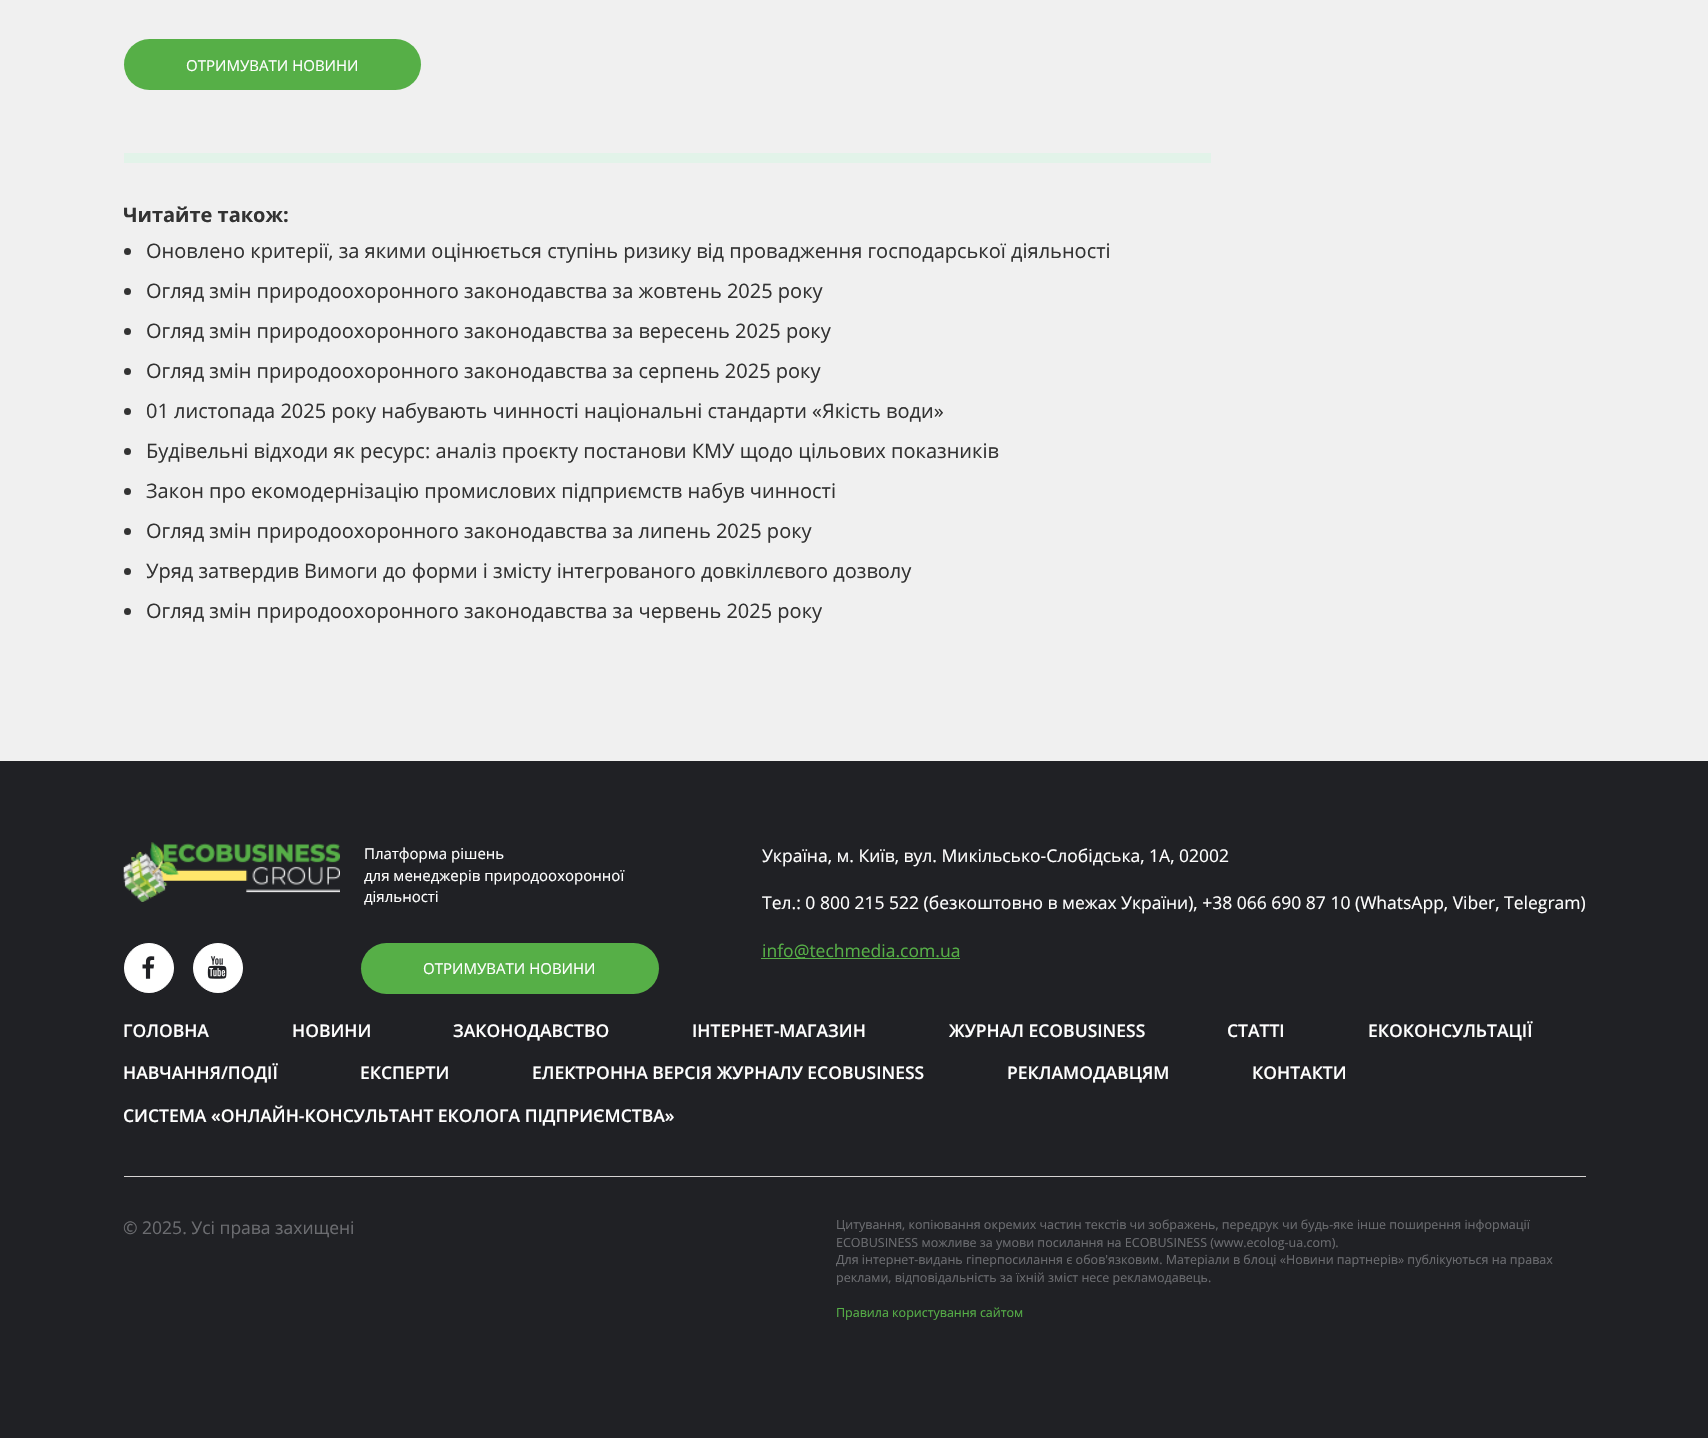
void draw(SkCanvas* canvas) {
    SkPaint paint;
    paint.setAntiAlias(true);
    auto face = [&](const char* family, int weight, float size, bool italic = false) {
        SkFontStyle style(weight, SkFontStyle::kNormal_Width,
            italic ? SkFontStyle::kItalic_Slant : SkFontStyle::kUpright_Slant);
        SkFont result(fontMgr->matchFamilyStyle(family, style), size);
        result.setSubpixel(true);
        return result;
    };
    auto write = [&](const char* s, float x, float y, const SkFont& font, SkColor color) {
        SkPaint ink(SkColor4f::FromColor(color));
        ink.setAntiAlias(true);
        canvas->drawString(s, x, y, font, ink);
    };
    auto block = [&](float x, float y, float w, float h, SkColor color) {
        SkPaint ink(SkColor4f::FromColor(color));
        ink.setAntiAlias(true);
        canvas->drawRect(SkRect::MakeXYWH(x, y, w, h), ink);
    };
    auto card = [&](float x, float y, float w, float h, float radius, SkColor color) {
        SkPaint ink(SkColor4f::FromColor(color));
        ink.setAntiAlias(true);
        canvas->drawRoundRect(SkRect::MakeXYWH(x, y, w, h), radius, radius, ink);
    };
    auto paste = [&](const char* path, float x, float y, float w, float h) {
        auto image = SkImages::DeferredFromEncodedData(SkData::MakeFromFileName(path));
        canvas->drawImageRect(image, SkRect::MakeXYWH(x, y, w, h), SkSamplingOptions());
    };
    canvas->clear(SkColorSetRGB(240, 240, 240));
    card(124, 39, 297, 51, 25.5f, SkColorSetRGB(86, 175, 71));
    auto kFont1 = face("Open Sans", 400, 15);
    write("ОТРИМУВАТИ НОВИНИ", 186, 71, kFont1, SK_ColorWHITE);
    block(124, 153, 1087, 10, SkColorSetRGB(226, 243, 233));
    auto kFont2 = face("Open Sans", 700, 20);
    write("Читайте також:", 123, 222, kFont2, SkColorSetRGB(51, 51, 51));
    paint.setColor(SkColorSetRGB(51, 51, 51));
    canvas->drawCircle(127.5f, 251.5f, 3.5f, paint);
    auto kFont3 = face("Open Sans", 400, 20);
    write("Оновлено критерії, за якими оцінюється ступінь ризику від провадження господарської діяльності", 146, 258, kFont3, SkColorSetRGB(51, 51, 51));
    canvas->drawCircle(127.5f, 291.5f, 3.5f, paint);
    write("Огляд змін природоохоронного законодавства за жовтень 2025 року", 146, 298, kFont3, SkColorSetRGB(51, 51, 51));
    canvas->drawCircle(127.5f, 331.5f, 3.5f, paint);
    write("Огляд змін природоохоронного законодавства за вересень 2025 року", 146, 338, kFont3, SkColorSetRGB(51, 51, 51));
    canvas->drawCircle(127.5f, 371.5f, 3.5f, paint);
    write("Огляд змін природоохоронного законодавства за серпень 2025 року", 146, 378, kFont3, SkColorSetRGB(51, 51, 51));
    canvas->drawCircle(127.5f, 411.5f, 3.5f, paint);
    write("01 листопада 2025 року набувають чинності національні стандарти «Якість води»", 146, 418, kFont3, SkColorSetRGB(51, 51, 51));
    canvas->drawCircle(127.5f, 451.5f, 3.5f, paint);
    write("Будівельні відходи як ресурс: аналіз проєкту постанови КМУ щодо цільових показників", 146, 458, kFont3, SkColorSetRGB(51, 51, 51));
    canvas->drawCircle(127.5f, 491.5f, 3.5f, paint);
    write("Закон про екомодернізацію промислових підприємств набув чинності", 146, 498, kFont3, SkColorSetRGB(51, 51, 51));
    canvas->drawCircle(127.5f, 531.5f, 3.5f, paint);
    write("Огляд змін природоохоронного законодавства за липень 2025 року", 146, 538, kFont3, SkColorSetRGB(51, 51, 51));
    canvas->drawCircle(127.5f, 571.5f, 3.5f, paint);
    write("Уряд затвердив Вимоги до форми і змісту інтегрованого довкіллєвого дозволу", 146, 578, kFont3, SkColorSetRGB(51, 51, 51));
    canvas->drawCircle(127.5f, 611.5f, 3.5f, paint);
    write("Огляд змін природоохоронного законодавства за червень 2025 року", 146, 618, kFont3, SkColorSetRGB(51, 51, 51));
    block(0, 761, 1708, 677, SkColorSetRGB(32, 33, 37));
    paste("pic1.png", 123, 842, 217, 60);
    write("Платформа рішень", 364, 859, kFont1, SK_ColorWHITE);
    write("для менеджерів природоохоронної", 364, 881, kFont1, SK_ColorWHITE);
    write("діяльності", 364, 902, kFont1, SK_ColorWHITE);
    auto kFont4 = face("Open Sans", 400, 17.5f);
    write("Україна, м. Київ, вул. Микільсько-Слобідська, 1А, 02002", 762, 862, kFont4, SK_ColorWHITE);
    write("Тел.: 0 800 215 522 (безкоштовно в межах України), +38 066 690 87 10 (WhatsApp, Viber, Telegram)", 762, 909, kFont4, SK_ColorWHITE);
    block(761, 958, 199, 1, SkColorSetRGB(86, 175, 71));
    write("info@techmedia.com.ua", 762, 957, kFont4, SkColorSetRGB(86, 175, 71));
    paint.setColor(SK_ColorWHITE);
    canvas->drawCircle(149, 968, 24.5f, paint);
    paint.setStyle(SkPaint::kStroke_Style);
    paint.setStrokeWidth(1);
    canvas->drawCircle(149, 968, 24.5f, paint);
    paste("pic2.png", 142, 956, 13, 23);
    paint.setStyle(SkPaint::kFill_Style);
    canvas->drawCircle(218, 968, 24.5f, paint);
    paint.setStyle(SkPaint::kStroke_Style);
    canvas->drawCircle(218, 968, 24.5f, paint);
    paste("pic3.png", 207, 956, 20, 23);
    card(361, 943, 298, 51, 25.5f, SkColorSetRGB(86, 175, 71));
    write("ОТРИМУВАТИ НОВИНИ", 423, 974, kFont1, SK_ColorWHITE);
    block(124, 1176, 1462, 1, SkColorSetRGB(214, 212, 212));
    auto kFont5 = face("Open Sans", 600, 17.5f);
    write("ГОЛОВНА", 123, 1037, kFont5, SK_ColorWHITE);
    write("НОВИНИ", 292, 1037, kFont5, SK_ColorWHITE);
    write("ЗАКОНОДАВСТВО", 453, 1037, kFont5, SK_ColorWHITE);
    write("ІНТЕРНЕТ-МАГАЗИН", 692, 1037, kFont5, SK_ColorWHITE);
    write("ЖУРНАЛ ECOBUSINESS", 949, 1037, kFont5, SK_ColorWHITE);
    write("СТАТТІ", 1227, 1037, kFont5, SK_ColorWHITE);
    write("ЕКОКОНСУЛЬТАЦІЇ", 1368, 1037, kFont5, SK_ColorWHITE);
    write("НАВЧАННЯ/ПОДІЇ", 123, 1079, kFont5, SK_ColorWHITE);
    write("ЕКСПЕРТИ", 360, 1079, kFont5, SK_ColorWHITE);
    write("ЕЛЕКТРОННА ВЕРСІЯ ЖУРНАЛУ ECOBUSINESS", 532, 1079, kFont5, SK_ColorWHITE);
    write("РЕКЛАМОДАВЦЯМ", 1007, 1079, kFont5, SK_ColorWHITE);
    write("КОНТАКТИ", 1252, 1079, kFont5, SK_ColorWHITE);
    write("СИСТЕМА «ОНЛАЙН-КОНСУЛЬТАНТ ЕКОЛОГА ПІДПРИЄМСТВА»", 123, 1122, kFont5, SK_ColorWHITE);
    write("© 2025. Усі права захищені", 123, 1234, kFont4, SkColorSetRGB(107, 108, 112));
    auto kFont6 = face("Open Sans", 400, 12.5f);
    write("Цитування, копіювання окремих частин текстів чи зображень, передрук чи будь-яке інше поширення інформації", 836, 1229, kFont6, SkColorSetRGB(107, 108, 112));
    write("ECOBUSINESS можливе за умови посилання на ECOBUSINESS (www.ecolog-ua.com).", 836, 1247, kFont6, SkColorSetRGB(107, 108, 112));
    write("Для інтернет-видань гіперпосилання є обов'язковим. Матеріали в блоці «Новини партнерів» публікуються на правах", 836, 1264, kFont6, SkColorSetRGB(107, 108, 112));
    write("реклами, відповідальність за їхній зміст несе рекламодавець.", 836, 1282, kFont6, SkColorSetRGB(107, 108, 112));
    write("Правила користування сайтом", 836, 1317, kFont6, SkColorSetRGB(86, 175, 71));
}
